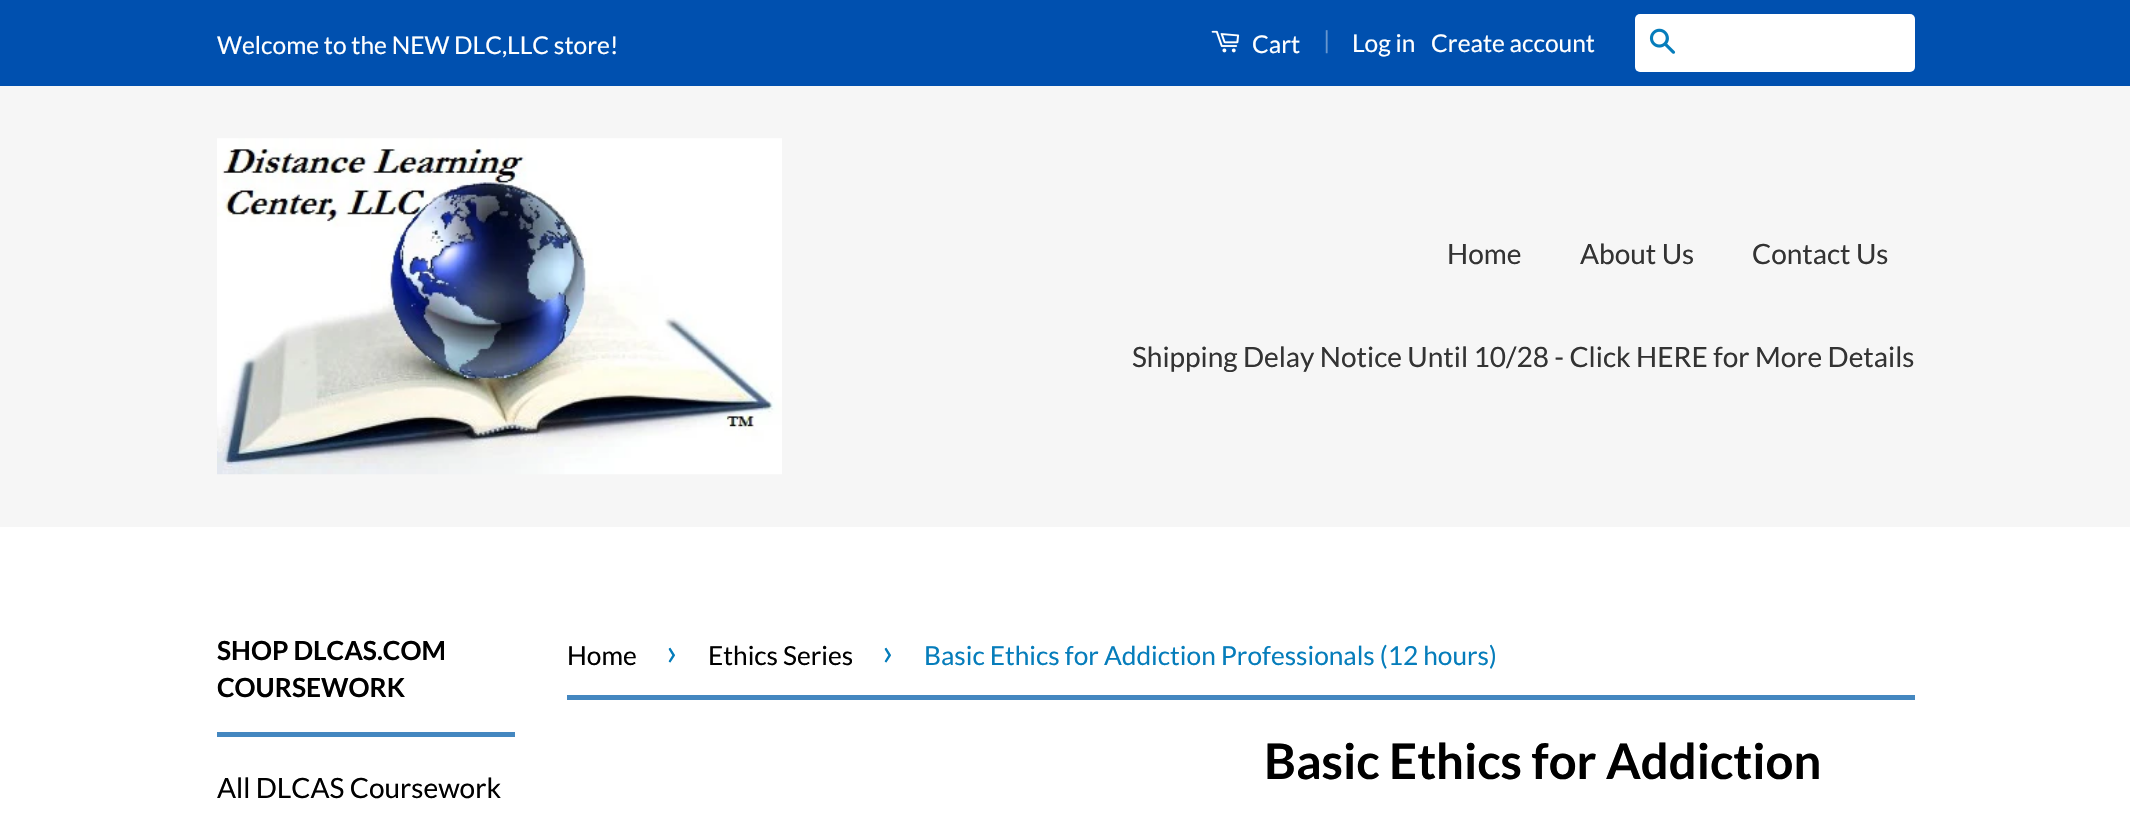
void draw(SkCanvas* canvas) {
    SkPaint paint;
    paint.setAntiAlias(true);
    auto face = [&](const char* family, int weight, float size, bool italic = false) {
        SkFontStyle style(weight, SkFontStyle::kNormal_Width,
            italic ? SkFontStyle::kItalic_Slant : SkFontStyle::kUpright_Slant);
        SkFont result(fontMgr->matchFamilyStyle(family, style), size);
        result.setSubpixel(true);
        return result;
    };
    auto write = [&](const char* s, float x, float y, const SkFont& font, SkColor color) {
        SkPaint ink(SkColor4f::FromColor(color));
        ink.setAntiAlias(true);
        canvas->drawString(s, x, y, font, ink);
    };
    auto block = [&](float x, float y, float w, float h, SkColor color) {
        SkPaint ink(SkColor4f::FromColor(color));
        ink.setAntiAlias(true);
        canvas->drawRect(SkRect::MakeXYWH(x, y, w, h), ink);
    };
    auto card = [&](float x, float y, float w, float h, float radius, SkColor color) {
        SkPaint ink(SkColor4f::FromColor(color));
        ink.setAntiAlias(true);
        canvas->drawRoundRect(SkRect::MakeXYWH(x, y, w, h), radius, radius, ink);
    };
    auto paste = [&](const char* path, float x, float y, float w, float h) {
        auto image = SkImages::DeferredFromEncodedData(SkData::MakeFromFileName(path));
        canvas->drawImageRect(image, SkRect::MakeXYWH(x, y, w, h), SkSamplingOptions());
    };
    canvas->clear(SK_ColorWHITE);
    block(0, 0, 2130, 86, SkColorSetRGB(0, 80, 175));
    auto kFont1 = face("Lato", 400, 24.5f);
    write("Welcome to the NEW DLC,LLC store!", 217, 54, kFont1, SK_ColorWHITE);
    paste("pic1.png", 1211, 30, 29, 23);
    write("Cart", 1252, 53, kFont1, SK_ColorWHITE);
    write("|", 1323, 49, kFont1, SkColorSetRGB(102, 150, 207));
    write("Log in", 1352, 52, kFont1, SK_ColorWHITE);
    write("Create account", 1431, 52, kFont1, SK_ColorWHITE);
    card(1635, 14, 280, 58, 5, SK_ColorWHITE);
    paste("pic2.png", 1649, 28, 27, 26);
    block(0, 86, 2130, 441, SkColorSetRGB(246, 246, 246));
    paste("pic3.png", 217, 138, 565, 337);
    auto kFont2 = face("Lato", 400, 28);
    write("Home", 1447, 264, kFont2, SkColorSetRGB(51, 51, 51));
    write("About Us", 1580, 264, kFont2, SkColorSetRGB(51, 51, 51));
    write("Contact Us", 1752, 264, kFont2, SkColorSetRGB(51, 51, 51));
    write("Shipping Delay Notice Until 10/28 - Click HERE for More Details", 1132, 367, kFont2, SkColorSetRGB(51, 51, 51));
    block(217, 732, 298, 5, SkColorSetRGB(68, 135, 192));
    auto kFont3 = face("Lato", 700, 26.25f);
    write("SHOP DLCAS.COM", 217, 660, kFont3, SK_ColorBLACK);
    write("COURSEWORK", 217, 697, kFont3, SK_ColorBLACK);
    write("All DLCAS Coursework", 217, 798, kFont2, SK_ColorBLACK);
    block(567, 695, 1348, 5, SkColorSetRGB(68, 135, 192));
    auto kFont4 = face("Lato", 400, 26.25f);
    write("Home", 567, 665, kFont4, SK_ColorBLACK);
    auto kFont5 = face("Lato", 400, 37);
    write("›", 666, 665, kFont5, SkColorSetRGB(6, 125, 187));
    write("Ethics Series", 708, 665, kFont4, SK_ColorBLACK);
    write("›", 882, 665, kFont5, SkColorSetRGB(6, 125, 187));
    write("Basic Ethics for Addiction Professionals (12 hours)", 924, 665, kFont4, SkColorSetRGB(6, 125, 187));
    auto kFont6 = face("Lato", 700, 49);
    write("Basic Ethics for Addiction", 1264, 779, kFont6, SK_ColorBLACK);
}
